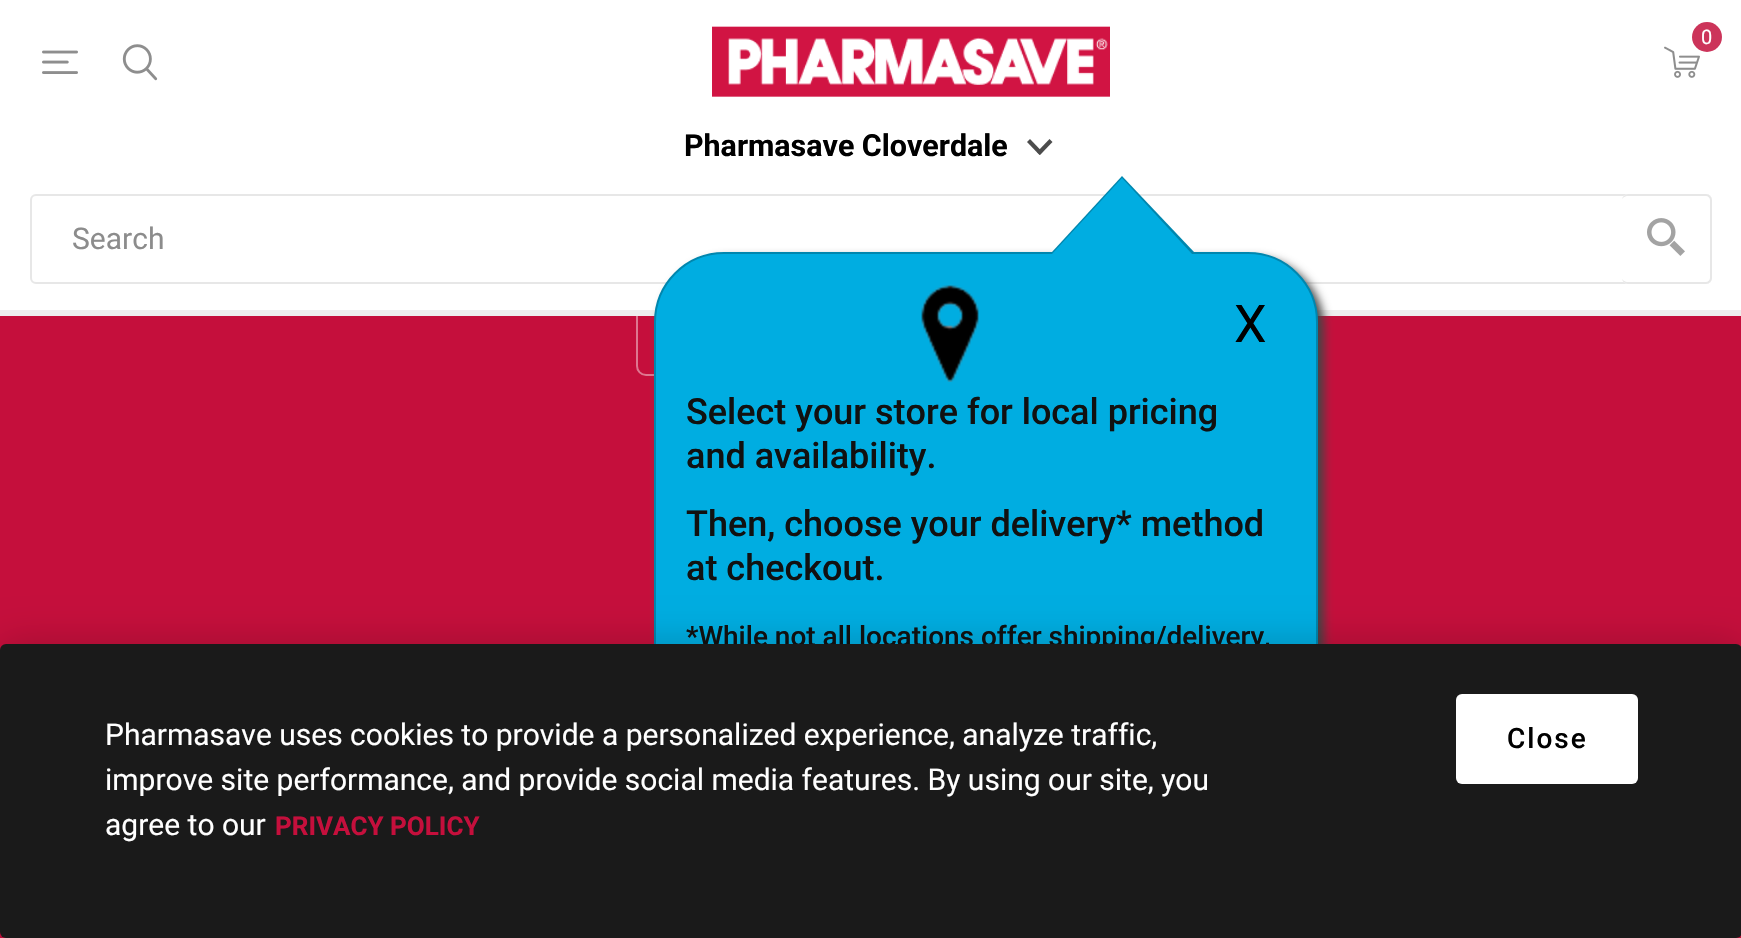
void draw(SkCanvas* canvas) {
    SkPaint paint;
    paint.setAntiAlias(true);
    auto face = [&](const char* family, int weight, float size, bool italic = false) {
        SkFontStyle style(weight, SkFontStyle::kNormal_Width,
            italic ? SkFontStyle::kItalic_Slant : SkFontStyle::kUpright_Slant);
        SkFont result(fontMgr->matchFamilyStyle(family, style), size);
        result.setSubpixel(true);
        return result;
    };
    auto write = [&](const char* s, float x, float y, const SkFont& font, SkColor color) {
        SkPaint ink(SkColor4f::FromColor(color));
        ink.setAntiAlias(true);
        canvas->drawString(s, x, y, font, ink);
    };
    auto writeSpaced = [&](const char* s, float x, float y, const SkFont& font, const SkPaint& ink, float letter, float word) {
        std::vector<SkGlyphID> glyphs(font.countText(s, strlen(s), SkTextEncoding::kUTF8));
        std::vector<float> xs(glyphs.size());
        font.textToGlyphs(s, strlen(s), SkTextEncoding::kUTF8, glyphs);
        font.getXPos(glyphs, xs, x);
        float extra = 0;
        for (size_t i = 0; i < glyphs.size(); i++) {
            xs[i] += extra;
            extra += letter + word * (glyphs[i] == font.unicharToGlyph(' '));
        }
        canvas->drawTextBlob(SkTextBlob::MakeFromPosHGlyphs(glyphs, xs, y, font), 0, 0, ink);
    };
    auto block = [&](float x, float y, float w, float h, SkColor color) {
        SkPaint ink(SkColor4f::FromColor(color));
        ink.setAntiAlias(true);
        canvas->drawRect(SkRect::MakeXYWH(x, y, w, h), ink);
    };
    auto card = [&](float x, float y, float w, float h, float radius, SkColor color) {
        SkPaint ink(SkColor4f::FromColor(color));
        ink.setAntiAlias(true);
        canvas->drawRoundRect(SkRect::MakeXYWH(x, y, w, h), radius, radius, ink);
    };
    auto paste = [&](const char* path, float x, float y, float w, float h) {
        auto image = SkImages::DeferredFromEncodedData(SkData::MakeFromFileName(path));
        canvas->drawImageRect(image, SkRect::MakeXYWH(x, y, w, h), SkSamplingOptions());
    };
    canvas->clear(SkColorSetRGB(197, 15, 60));
    paint.setStyle(SkPaint::kStroke_Style);
    paint.setStrokeWidth(2);
    paint.setColor(SkColorSetRGB(222, 119, 144));
    canvas->drawRoundRect(SkRect::MakeXYWH(637, 241, 448, 134), 9, 9, paint);
    block(0, 0, 1741, 310, SK_ColorWHITE);
    block(0, 310, 1741, 6, SkColorSetRGB(238, 238, 238));
    paint.setColor(SkColorSetRGB(231, 231, 231));
    canvas->drawRoundRect(SkRect::MakeXYWH(31, 195, 1680, 88), 5, 5, paint);
    auto kFont1 = face("Roboto", 400, 30);
    write("Search", 72, 249, kFont1, SkColorSetRGB(140, 140, 140));
    card(1622, 194, 90, 90, 6, SK_ColorWHITE);
    paint.setStyle(SkPaint::kFill_Style);
    canvas->drawPath(SkPathBuilder(SkPathFillType::kEvenOdd).moveTo(1628, 194).lineTo(1706, 194).cubicTo(1709, 194, 1712, 197, 1712, 200).lineTo(1712, 278).cubicTo(1712, 281, 1709, 284, 1706, 284).lineTo(1628, 284).cubicTo(1625, 284, 1622, 281, 1622, 278).lineTo(1622, 200).cubicTo(1622, 197, 1625, 194, 1628, 194).close().moveTo(1628, 196).lineTo(1706, 196).cubicTo(1708, 196, 1710, 198, 1710, 200).lineTo(1710, 278).cubicTo(1710, 280, 1708, 282, 1706, 282).lineTo(1628, 282).cubicTo(1625, 282, 1622, 280, 1622, 278).lineTo(1622, 200).cubicTo(1622, 198, 1625, 196, 1628, 196).close().detach(), paint);
    paste("pic1.png", 1647, 218, 38, 38);
    paste("pic2.png", 712, 26, 398, 71);
    paste("pic3.png", 1664, 46, 36, 32);
    paint.setColor(SkColorSetRGB(204, 52, 90));
    canvas->drawCircle(1707, 37, 15, paint);
    auto kFont2 = face("Roboto", 400, 20);
    write("0", 1701, 44, kFont2, SK_ColorWHITE);
    paste("pic4.png", 42, 50, 36, 24);
    paste("pic5.png", 122, 44, 36, 37);
    auto kFont3 = face("Roboto", 700, 30.4f);
    write("Pharmasave Cloverdale", 684, 156, kFont3, SK_ColorBLACK);
    paint.setColor(SkColorSetRGB(76, 76, 76));
    canvas->drawPath(SkPathBuilder().moveTo(1030, 139).lineTo(1042.5f, 152).lineTo(1039.5f, 155).lineTo(1027, 142).close().detach(), paint);
    canvas->drawPath(SkPathBuilder().moveTo(1037, 152).lineTo(1049.5f, 139).lineTo(1052.5f, 142).lineTo(1040, 155).close().detach(), paint);
    paint.setColor(SkColorSetRGB(68, 68, 68));
    paint.setMaskFilter(SkMaskFilter::MakeBlur(kNormal_SkBlurStyle, 5));
    canvas->drawRoundRect(SkRect::MakeXYWH(660, 258, 664, 506), 70, 70, paint);
    paint.setMaskFilter(nullptr);
    paint.setColor(SkColorSetRGB(0, 173, 225));
    canvas->drawRoundRect(SkRect::MakeXYWH(655, 253, 662, 504), 69, 69, paint);
    paint.setStyle(SkPaint::kStroke_Style);
    paint.setColor(SkColorSetRGB(0, 134, 174));
    canvas->drawRoundRect(SkRect::MakeXYWH(655, 253, 662, 504), 69, 69, paint);
    paint.setStyle(SkPaint::kFill_Style);
    canvas->drawPath(SkPathBuilder().moveTo(1194, 252).lineTo(1052, 252).lineTo(1122, 176).close().detach(), paint);
    paint.setColor(SkColorSetRGB(0, 173, 225));
    canvas->drawPath(SkPathBuilder().moveTo(1192, 254).lineTo(1052, 254).lineTo(1122, 178).close().detach(), paint);
    paste("pic6.png", 921, 284, 59, 98);
    auto kFont4 = face("Roboto", 400, 52);
    write("X", 1234, 342, kFont4, SK_ColorBLACK);
    auto kFont5 = face("Roboto", 500, 36);
    write("Select your store for local pricing", 686, 424, kFont5, SkColorSetRGB(17, 17, 17));
    write("and availability.", 686, 468, kFont5, SkColorSetRGB(17, 17, 17));
    write("Then, choose your delivery* method", 686, 536, kFont5, SkColorSetRGB(17, 17, 17));
    write("at checkout.", 686, 580, kFont5, SkColorSetRGB(17, 17, 17));
    auto kFont6 = face("Roboto", 500, 28);
    write("*While not all locations offer shipping/delivery,", 686, 646, kFont6, SkColorSetRGB(17, 17, 17));
    paint.setColor(SkColorSetARGB(51, 0, 0, 0));
    paint.setMaskFilter(SkMaskFilter::MakeBlur(kNormal_SkBlurStyle, 20));
    canvas->drawRoundRect(SkRect::MakeXYWH(0, 644, 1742, 294), 6, 6, paint);
    paint.setMaskFilter(nullptr);
    card(0, 644, 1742, 294, 6, SkColorSetRGB(26, 26, 26));
    write("Pharmasave uses cookies to provide a personalized experience, analyze traffic,", 105, 745, kFont1, SK_ColorWHITE);
    write("improve site performance, and provide social media features. By using our site, you", 105, 790, kFont1, SK_ColorWHITE);
    write("agree to our", 105, 835, kFont1, SK_ColorWHITE);
    auto kFont7 = face("Roboto", 700, 26);
    write("PRIVACY POLICY", 275, 835, kFont7, SkColorSetRGB(197, 15, 60));
    card(1456, 694, 182, 90, 6, SK_ColorWHITE);
    paint.setColor(SK_ColorBLACK);
    writeSpaced("Close", 1507, 748, kFont6, paint, 2, 0);
}
